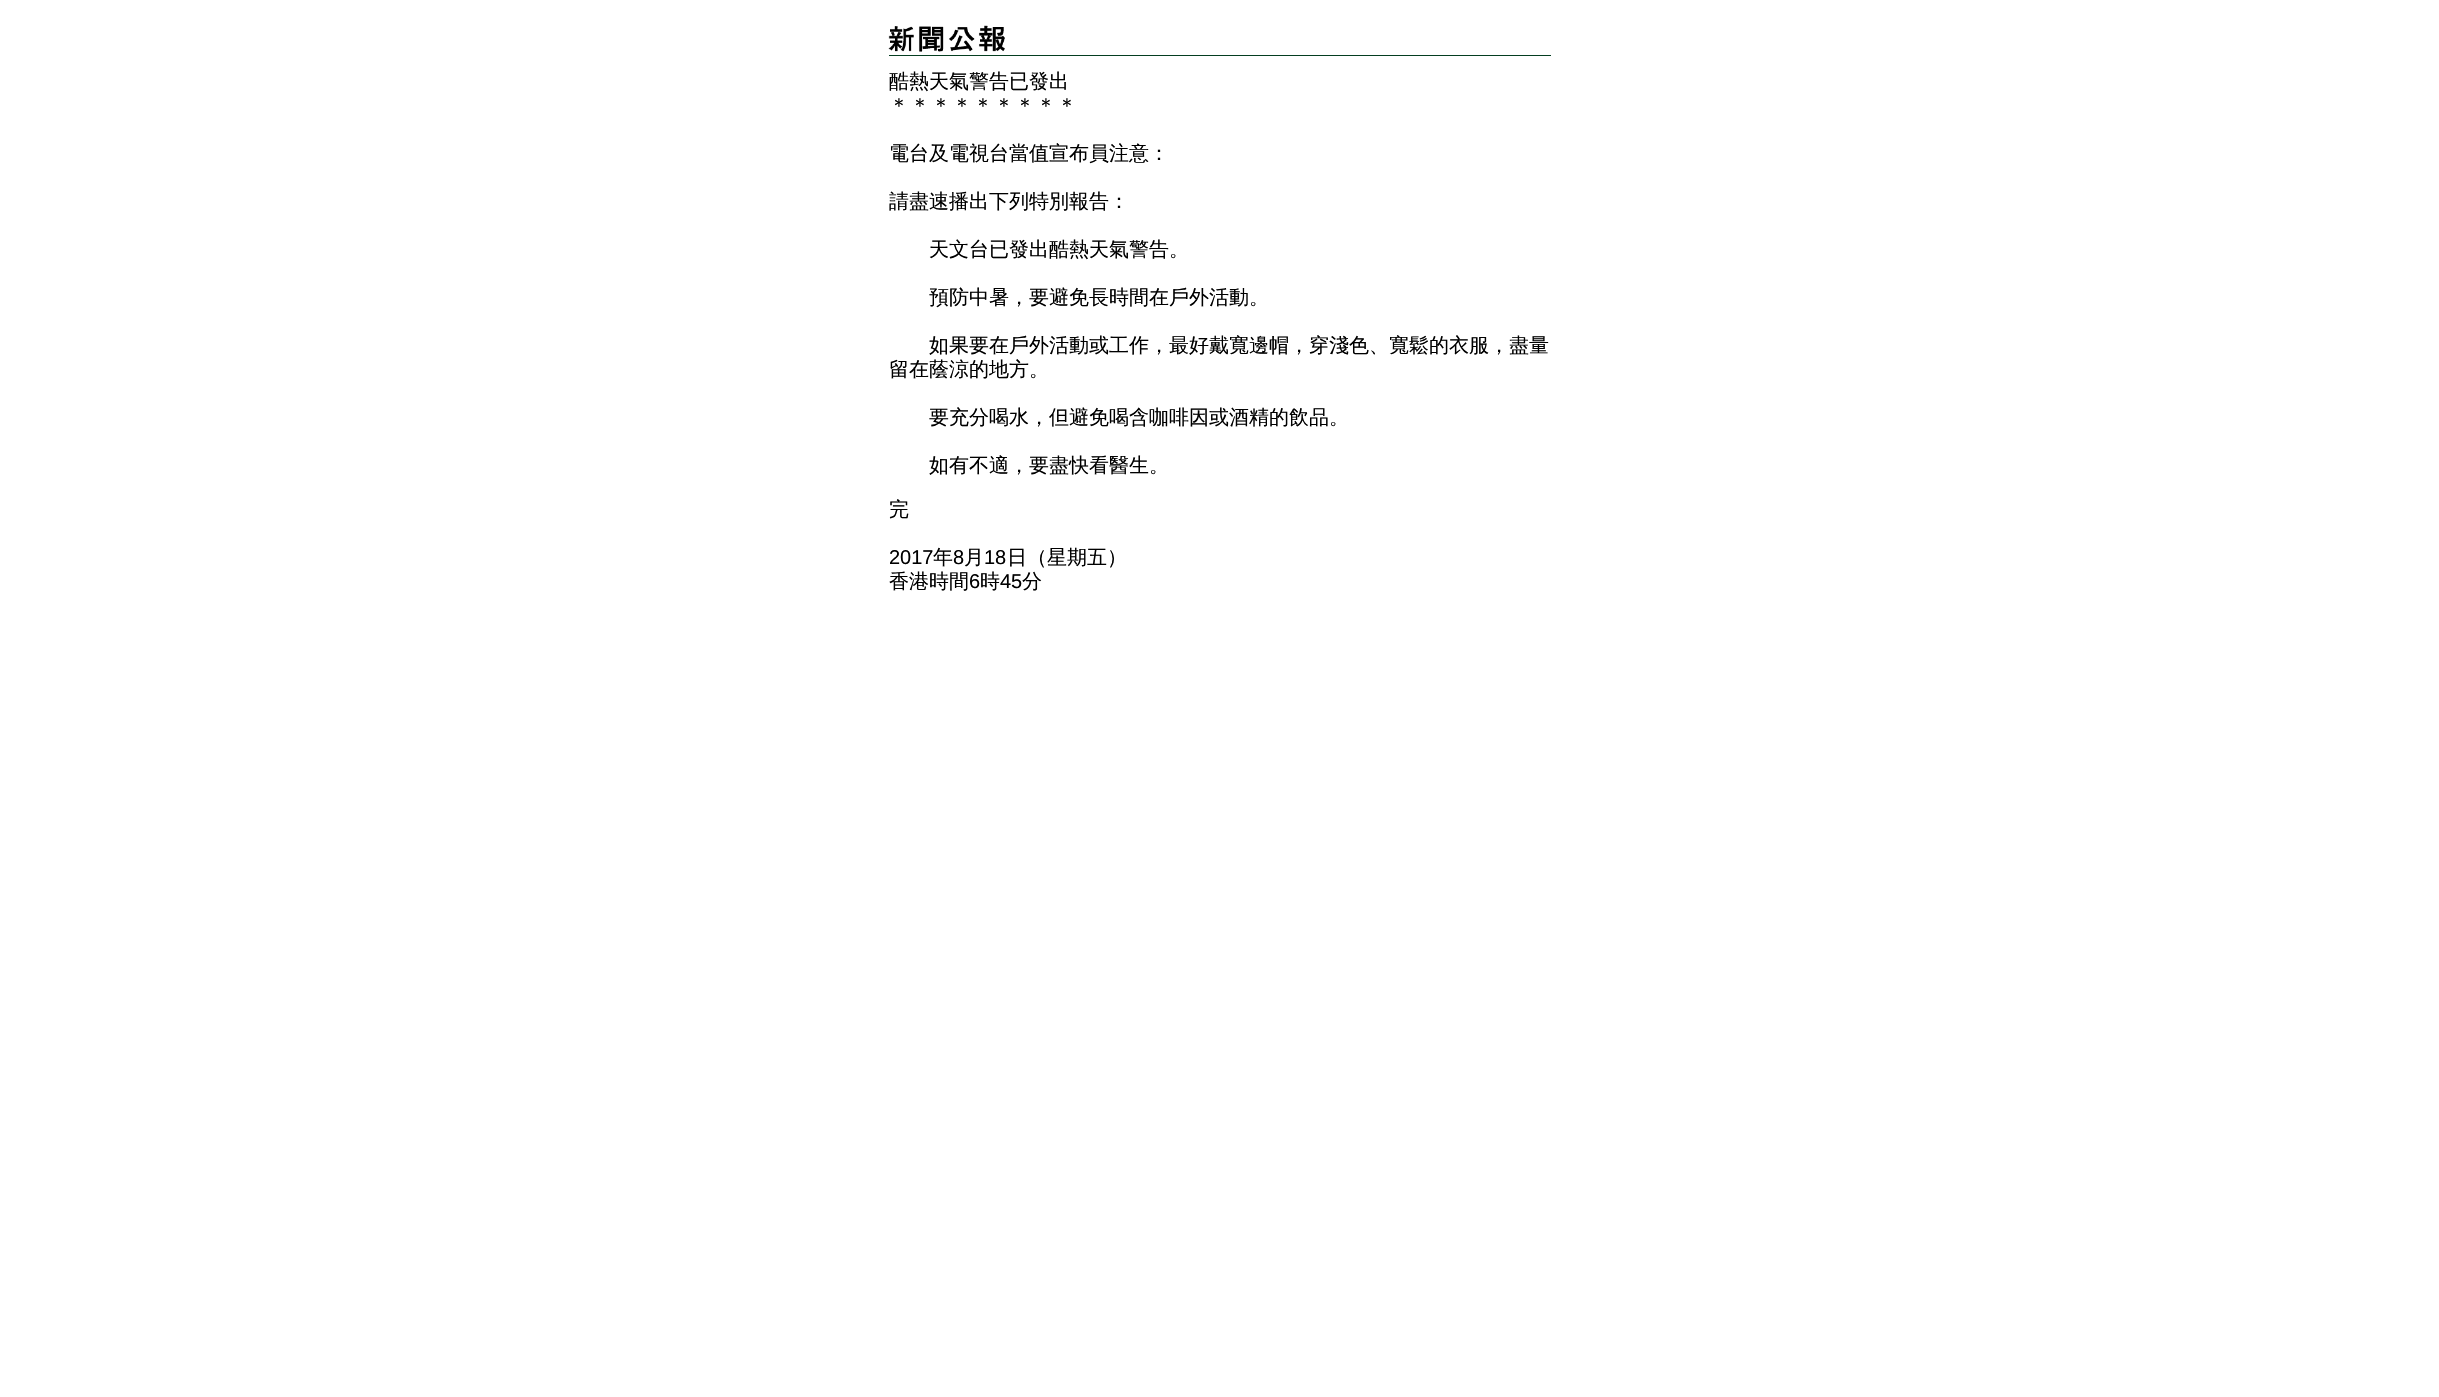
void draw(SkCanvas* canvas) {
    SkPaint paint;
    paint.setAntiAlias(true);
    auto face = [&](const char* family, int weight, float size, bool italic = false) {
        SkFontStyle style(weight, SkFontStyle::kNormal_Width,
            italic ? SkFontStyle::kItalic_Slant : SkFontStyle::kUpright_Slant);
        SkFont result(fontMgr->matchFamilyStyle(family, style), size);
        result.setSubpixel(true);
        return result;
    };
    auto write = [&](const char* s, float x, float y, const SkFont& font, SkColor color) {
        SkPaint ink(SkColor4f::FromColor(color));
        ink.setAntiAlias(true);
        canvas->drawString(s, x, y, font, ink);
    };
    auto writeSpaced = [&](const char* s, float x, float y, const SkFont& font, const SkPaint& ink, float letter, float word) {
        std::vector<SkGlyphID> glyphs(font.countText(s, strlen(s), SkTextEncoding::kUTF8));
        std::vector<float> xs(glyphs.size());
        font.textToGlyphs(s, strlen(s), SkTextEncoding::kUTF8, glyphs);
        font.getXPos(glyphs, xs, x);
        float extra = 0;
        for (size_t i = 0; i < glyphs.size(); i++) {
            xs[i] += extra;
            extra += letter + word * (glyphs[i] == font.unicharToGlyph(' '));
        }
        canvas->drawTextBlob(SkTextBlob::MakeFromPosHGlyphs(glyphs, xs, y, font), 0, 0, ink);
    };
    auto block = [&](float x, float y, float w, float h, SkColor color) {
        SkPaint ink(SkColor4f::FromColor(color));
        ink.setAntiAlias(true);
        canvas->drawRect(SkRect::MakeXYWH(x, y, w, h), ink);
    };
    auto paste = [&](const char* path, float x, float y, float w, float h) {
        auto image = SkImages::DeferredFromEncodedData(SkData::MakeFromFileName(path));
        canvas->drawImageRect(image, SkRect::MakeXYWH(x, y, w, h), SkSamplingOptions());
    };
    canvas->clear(SK_ColorWHITE);
    block(889, 55, 662, 1, SkColorSetRGB(5, 62, 33));
    paste("pic1.png", 888, 25, 117, 27);
    auto kFont1 = face("WenQuanYi Zen Hei", 500, 20);
    write("酷熱天氣警告已發出", 889, 88, kFont1, SK_ColorBLACK);
    paint.setColor(SK_ColorBLACK);
    writeSpaced("＊＊＊＊＊＊＊＊＊", 889, 112, kFont1, paint, 1, 0);
    write("電台及電視台當值宣布員注意：", 889, 160, kFont1, SK_ColorBLACK);
    write("請盡速播出下列特別報告：", 889, 208, kFont1, SK_ColorBLACK);
    write("天文台已發出酷熱天氣警告。", 929, 256, kFont1, SK_ColorBLACK);
    write("預防中暑，要避免長時間在戶外活動。", 929, 304, kFont1, SK_ColorBLACK);
    write("如果要在戶外活動或工作，最好戴寬邊帽，穿淺色、寬鬆的衣服，盡量", 929, 352, kFont1, SK_ColorBLACK);
    write("留在蔭涼的地方。", 889, 376, kFont1, SK_ColorBLACK);
    write("要充分喝水，但避免喝含咖啡因或酒精的飲品。", 929, 424, kFont1, SK_ColorBLACK);
    write("如有不適，要盡快看醫生。", 929, 472, kFont1, SK_ColorBLACK);
    write("完", 889, 516, kFont1, SK_ColorBLACK);
    auto kFont2 = face("Liberation Sans", 400, 20);
    write("2017", 889, 564, kFont2, SK_ColorBLACK);
    write("年", 933, 564, kFont1, SK_ColorBLACK);
    write("8", 953, 564, kFont2, SK_ColorBLACK);
    write("月", 964, 564, kFont1, SK_ColorBLACK);
    write("18", 984, 564, kFont2, SK_ColorBLACK);
    write("日（星期五）", 1007, 564, kFont1, SK_ColorBLACK);
    write("香港時間", 889, 588, kFont1, SK_ColorBLACK);
    write("6", 969, 588, kFont2, SK_ColorBLACK);
    write("時", 980, 588, kFont1, SK_ColorBLACK);
    write("45", 1000, 588, kFont2, SK_ColorBLACK);
    write("分", 1022, 588, kFont1, SK_ColorBLACK);
}
